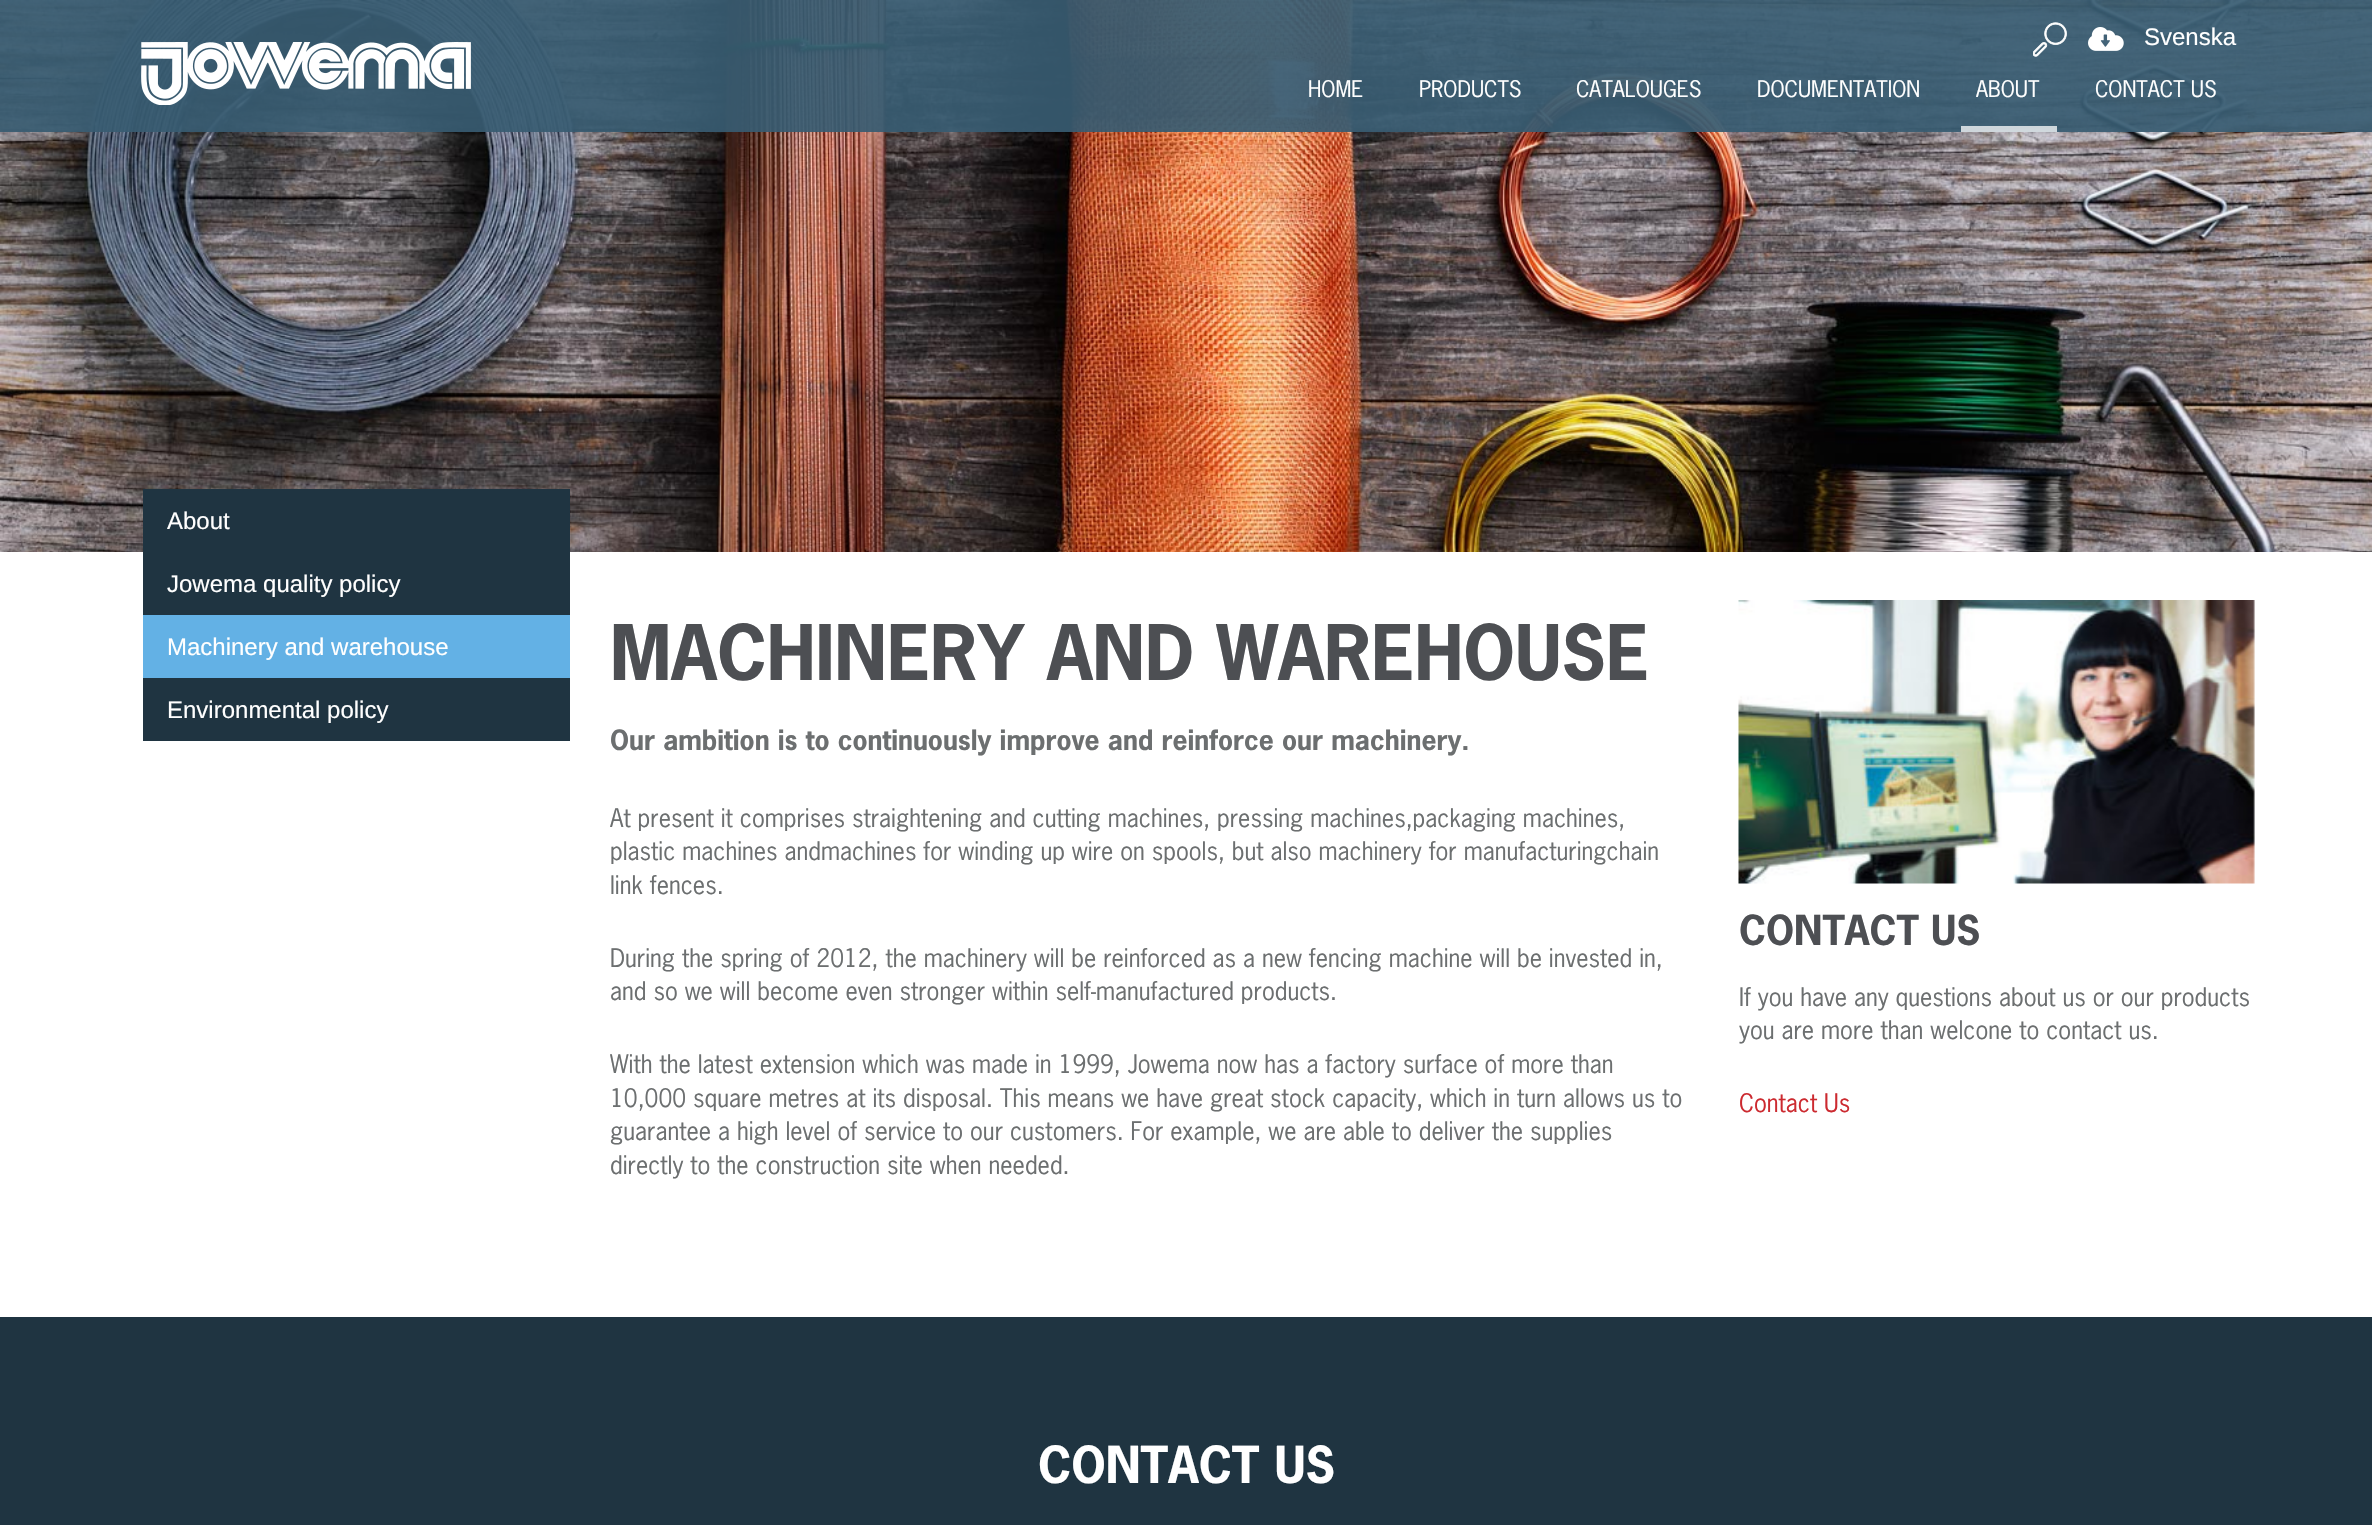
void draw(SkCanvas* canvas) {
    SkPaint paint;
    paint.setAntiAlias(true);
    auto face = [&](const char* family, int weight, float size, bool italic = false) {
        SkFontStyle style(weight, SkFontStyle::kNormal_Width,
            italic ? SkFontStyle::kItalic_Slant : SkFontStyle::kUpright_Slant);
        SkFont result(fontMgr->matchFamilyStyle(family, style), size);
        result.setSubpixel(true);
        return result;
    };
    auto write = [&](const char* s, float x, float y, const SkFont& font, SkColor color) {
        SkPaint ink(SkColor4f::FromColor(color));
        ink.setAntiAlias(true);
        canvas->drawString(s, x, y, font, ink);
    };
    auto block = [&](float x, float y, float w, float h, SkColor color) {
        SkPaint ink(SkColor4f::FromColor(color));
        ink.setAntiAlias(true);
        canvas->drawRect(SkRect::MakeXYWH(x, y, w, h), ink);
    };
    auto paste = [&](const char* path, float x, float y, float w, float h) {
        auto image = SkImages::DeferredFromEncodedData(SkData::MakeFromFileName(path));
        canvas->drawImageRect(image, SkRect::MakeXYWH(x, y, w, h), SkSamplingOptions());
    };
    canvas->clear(SK_ColorWHITE);
    paste("pic1.png", 0, 0, 2372, 552);
    block(0, 0, 2372, 132, SkColorSetARGB(235, 55, 91, 113));
    paste("pic2.png", 141, 42, 330, 63);
    paste("pic3.png", 2033, 22, 34, 35);
    paste("pic4.png", 2088, 27, 36, 24);
    auto kFont1 = face("Liberation Sans", 400, 24);
    write("Svenska", 2144, 45, kFont1, SK_ColorWHITE);
    auto kFont2 = face("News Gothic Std", 400, 21.5f);
    write("HOME", 1308, 97, kFont2, SK_ColorWHITE);
    write("PRODUCTS", 1419, 97, kFont2, SK_ColorWHITE);
    write("CATALOUGES", 1576, 97, kFont2, SK_ColorWHITE);
    write("DOCUMENTATION", 1757, 97, kFont2, SK_ColorWHITE);
    block(1961, 126, 96, 6, SkColorSetARGB(191, 255, 255, 255));
    write("ABOUT", 1976, 97, kFont2, SK_ColorWHITE);
    write("CONTACT US", 2095, 97, kFont2, SK_ColorWHITE);
    block(143, 489, 427, 126, SkColorSetRGB(31, 52, 65));
    write("About", 167, 529, kFont1, SK_ColorWHITE);
    write("Jowema quality policy", 167, 592, kFont1, SK_ColorWHITE);
    block(143, 615, 427, 63, SkColorSetRGB(99, 177, 229));
    write("Machinery and warehouse", 167, 655, kFont1, SK_ColorWHITE);
    block(143, 678, 427, 63, SkColorSetRGB(31, 52, 65));
    write("Environmental policy", 167, 718, kFont1, SK_ColorWHITE);
    auto kFont3 = face("News Gothic Std", 700, 72);
    write("MACHINERY AND WAREHOUSE", 610, 680, kFont3, SkColorSetRGB(77, 79, 83));
    auto kFont4 = face("News Gothic Std", 700, 26.4f);
    write("Our ambition is to continuously improve and reinforce our machinery.", 610, 750, kFont4, SkColorSetRGB(108, 111, 112));
    auto kFont5 = face("News Gothic Std", 400, 24);
    write("At present it comprises straightening and cutting machines, pressing machines,packaging machines,", 610, 827, kFont5, SkColorSetRGB(108, 111, 112));
    write("plastic machines andmachines for winding up wire on spools, but also machinery for manufacturingchain", 610, 860, kFont5, SkColorSetRGB(108, 111, 112));
    write("link fences.", 610, 894, kFont5, SkColorSetRGB(108, 111, 112));
    write("During the spring of 2012, the machinery will be reinforced as a new fencing machine will be invested in,", 610, 967, kFont5, SkColorSetRGB(108, 111, 112));
    write("and so we will become even stronger within self-manufactured products.", 610, 1000, kFont5, SkColorSetRGB(108, 111, 112));
    write("With the latest extension which was made in 1999, Jowema now has a factory surface of more than", 610, 1073, kFont5, SkColorSetRGB(108, 111, 112));
    write("10,000 square metres at its disposal. This means we have great stock capacity, which in turn allows us to", 610, 1107, kFont5, SkColorSetRGB(108, 111, 112));
    write("guarantee a high level of service to our customers. For example, we are able to deliver the supplies", 610, 1140, kFont5, SkColorSetRGB(108, 111, 112));
    write("directly to the construction site when needed.", 610, 1174, kFont5, SkColorSetRGB(108, 111, 112));
    paste("pic5.png", 1738, 600, 517, 284);
    auto kFont6 = face("News Gothic Std", 700, 39);
    write("CONTACT US", 1739, 945, kFont6, SkColorSetRGB(77, 79, 83));
    write("If you have any questions about us or our products", 1739, 1006, kFont5, SkColorSetRGB(108, 111, 112));
    write("you are more than welcone to contact us.", 1739, 1039, kFont5, SkColorSetRGB(108, 111, 112));
    write("Contact Us", 1739, 1112, kFont5, SkColorSetRGB(204, 42, 48));
    block(0, 1317, 2372, 208, SkColorSetRGB(31, 52, 65));
    auto kFont7 = face("News Gothic Std", 700, 48);
    write("CONTACT US", 1038, 1483, kFont7, SK_ColorWHITE);
}
